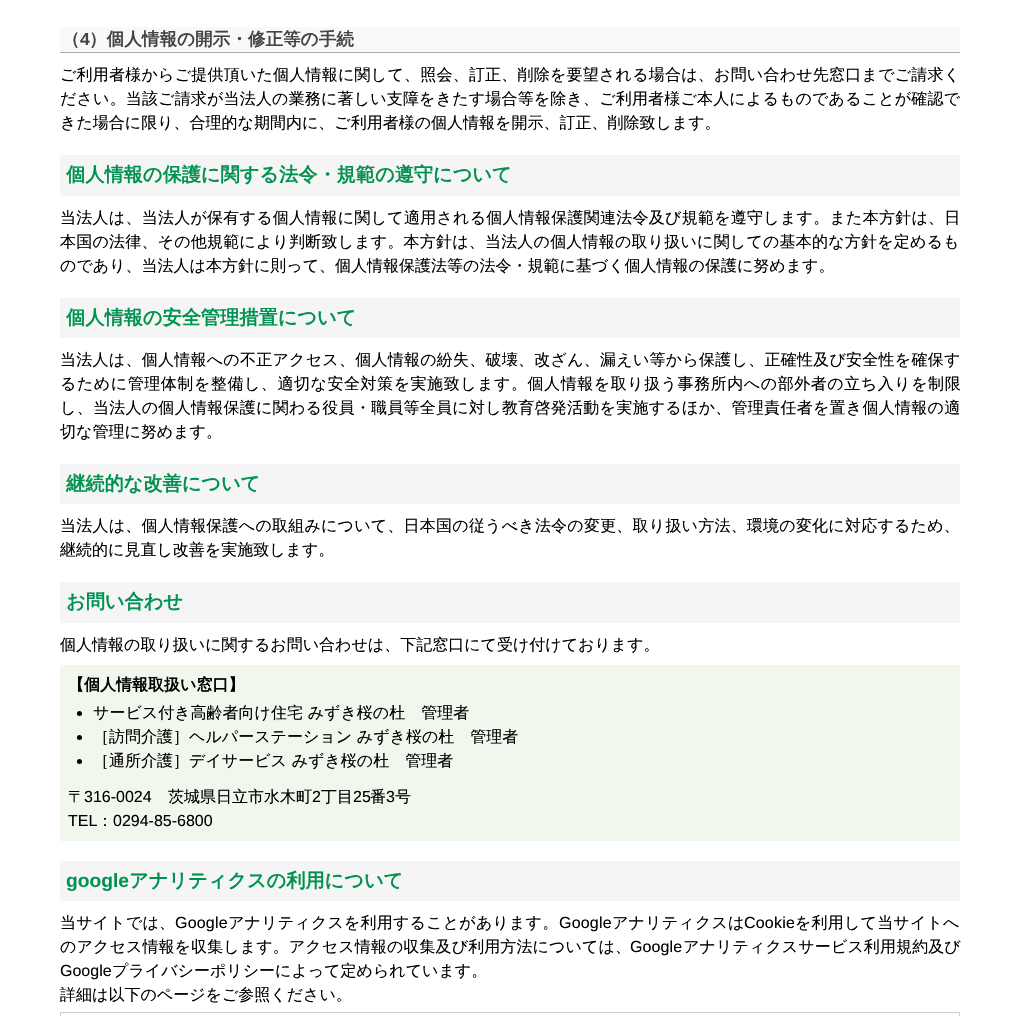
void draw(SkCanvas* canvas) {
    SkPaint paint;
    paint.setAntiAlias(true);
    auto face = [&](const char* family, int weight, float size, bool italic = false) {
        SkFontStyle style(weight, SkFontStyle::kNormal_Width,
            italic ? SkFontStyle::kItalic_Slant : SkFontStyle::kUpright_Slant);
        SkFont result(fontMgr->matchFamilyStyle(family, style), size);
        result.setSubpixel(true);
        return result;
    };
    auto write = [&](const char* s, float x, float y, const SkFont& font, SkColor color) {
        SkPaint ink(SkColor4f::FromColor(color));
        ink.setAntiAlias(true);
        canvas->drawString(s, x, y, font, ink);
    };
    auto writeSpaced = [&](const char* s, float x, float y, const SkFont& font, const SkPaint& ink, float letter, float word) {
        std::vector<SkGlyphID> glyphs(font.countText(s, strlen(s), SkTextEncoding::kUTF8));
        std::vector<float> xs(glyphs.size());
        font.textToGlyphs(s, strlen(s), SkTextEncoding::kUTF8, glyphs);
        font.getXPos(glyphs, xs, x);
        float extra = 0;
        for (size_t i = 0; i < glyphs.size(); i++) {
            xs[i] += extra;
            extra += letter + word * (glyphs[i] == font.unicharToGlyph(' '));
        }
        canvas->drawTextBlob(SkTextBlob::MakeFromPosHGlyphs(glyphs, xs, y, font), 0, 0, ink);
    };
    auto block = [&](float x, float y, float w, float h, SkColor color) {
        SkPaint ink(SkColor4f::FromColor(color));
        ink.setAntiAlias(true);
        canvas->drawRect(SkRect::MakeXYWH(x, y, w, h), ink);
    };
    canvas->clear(SK_ColorWHITE);
    block(60, 27, 900, 25, SkColorSetRGB(249, 249, 249));
    block(60, 52, 900, 1, SkColorSetRGB(170, 170, 170));
    auto kFont1 = face("WenQuanYi Zen Hei", 700, 17.6f);
    write("（", 62, 45, kFont1, SkColorSetRGB(68, 68, 68));
    auto kFont2 = face("Liberation Sans", 700, 17.6f);
    write("4", 80, 45, kFont2, SkColorSetRGB(68, 68, 68));
    write("）個人情報の開示・修正等の手続", 89, 45, kFont1, SkColorSetRGB(68, 68, 68));
    auto kFont3 = face("WenQuanYi Zen Hei", 500, 16);
    paint.setColor(SK_ColorBLACK);
    writeSpaced("ご利用者様からご提供頂いた個人情報に関して、照会、訂正、削除を要望される場合は、お問い合わせ先窓口までご請求く", 60, 80, kFont3, paint, 0.22f, 0);
    writeSpaced("ださい。当該ご請求が当法人の業務に著しい支障をきたす場合等を除き、ご利用者様ご本人によるものであることが確認で", 60, 104, kFont3, paint, 0.17f, 0);
    write("きた場合に限り、合理的な期間内に、ご利用者様の個人情報を開示、訂正、削除致します。", 60, 128, kFont3, SK_ColorBLACK);
    block(60, 155, 900, 41, SkColorSetRGB(245, 245, 245));
    auto kFont4 = face("WenQuanYi Zen Hei", 700, 19.2f);
    write("個人情報の保護に関する法令・規範の遵守について", 66, 181, kFont4, SkColorSetRGB(0, 146, 80));
    writeSpaced("当法人は、当法人が保有する個人情報に関して適用される個人情報保護関連法令及び規範を遵守します。また本方針は、日", 60, 223, kFont3, paint, 0.25f, 0);
    writeSpaced("本国の法律、その他規範により判断致します。本方針は、当法人の個人情報の取り扱いに関しての基本的な方針を定めるも", 60, 247, kFont3, paint, 0.2f, 0);
    write("のであり、当法人は本方針に則って、個人情報保護法等の法令・規範に基づく個人情報の保護に努めます。", 60, 271, kFont3, SK_ColorBLACK);
    block(60, 298, 900, 40, SkColorSetRGB(245, 245, 245));
    write("個人情報の安全管理措置について", 66, 324, kFont4, SkColorSetRGB(0, 146, 80));
    writeSpaced("当法人は、個人情報への不正アクセス、個人情報の紛失、破壊、改ざん、漏えい等から保護し、正確性及び安全性を確保す", 60, 365, kFont3, paint, 0.25f, 0);
    writeSpaced("るために管理体制を整備し、適切な安全対策を実施致します。個人情報を取り扱う事務所内への部外者の立ち入りを制限", 60, 389, kFont3, paint, 0.55f, 0);
    writeSpaced("し、当法人の個人情報保護に関わる役員・職員等全員に対し教育啓発活動を実施するほか、管理責任者を置き個人情報の適", 60, 413, kFont3, paint, 0.27f, 0);
    write("切な管理に努めます。", 60, 437, kFont3, SK_ColorBLACK);
    block(60, 464, 900, 40, SkColorSetRGB(245, 245, 245));
    write("継続的な改善について", 66, 490, kFont4, SkColorSetRGB(0, 146, 80));
    writeSpaced("当法人は、個人情報保護への取組みについて、日本国の従うべき法令の変更、取り扱い方法、環境の変化に対応するため、", 60, 531, kFont3, paint, 0.22f, 0);
    write("継続的に見直し改善を実施致します。", 60, 555, kFont3, SK_ColorBLACK);
    block(60, 582, 900, 41, SkColorSetRGB(245, 245, 245));
    write("お問い合わせ", 66, 608, kFont4, SkColorSetRGB(0, 146, 80));
    write("個人情報の取り扱いに関するお問い合わせは、下記窓口にて受け付けております。", 60, 650, kFont3, SK_ColorBLACK);
    block(60, 665, 900, 176, SkColorSetRGB(242, 247, 237));
    auto kFont5 = face("WenQuanYi Zen Hei", 700, 16);
    write("【個人情報取扱い窓口】", 68, 690, kFont5, SK_ColorBLACK);
    canvas->drawCircle(79.5f, 713.5f, 2.5f, paint);
    write("サービス付き高齢者向け住宅 みずき桜の杜　管理者", 93, 718, kFont3, SK_ColorBLACK);
    canvas->drawCircle(79.5f, 737.5f, 2.5f, paint);
    write("［訪問介護］ヘルパーステーション みずき桜の杜　管理者", 93, 742, kFont3, SK_ColorBLACK);
    canvas->drawCircle(79.5f, 761.5f, 2.5f, paint);
    write("［通所介護］デイサービス みずき桜の杜　管理者", 93, 766, kFont3, SK_ColorBLACK);
    write("〒", 68, 802, kFont3, SK_ColorBLACK);
    auto kFont6 = face("Liberation Sans", 400, 16);
    write("316-0024", 84, 802, kFont6, SK_ColorBLACK);
    write("茨城県日立市水木町", 168, 802, kFont3, SK_ColorBLACK);
    write("2", 312, 802, kFont6, SK_ColorBLACK);
    write("丁目", 321, 802, kFont3, SK_ColorBLACK);
    write("25", 353, 802, kFont6, SK_ColorBLACK);
    write("番", 370, 802, kFont3, SK_ColorBLACK);
    write("3", 386, 802, kFont6, SK_ColorBLACK);
    write("号", 395, 802, kFont3, SK_ColorBLACK);
    write("TEL", 68, 826, kFont6, SK_ColorBLACK);
    write("：", 97, 826, kFont3, SK_ColorBLACK);
    write("0294-85-6800", 113, 826, kFont6, SK_ColorBLACK);
    block(60, 861, 900, 40, SkColorSetRGB(245, 245, 245));
    auto kFont7 = face("Liberation Sans", 700, 19.2f);
    write("google", 66, 887, kFont7, SkColorSetRGB(0, 146, 80));
    write("アナリティクスの利用について", 129, 887, kFont4, SkColorSetRGB(0, 146, 80));
    writeSpaced("当サイトでは、", 60, 928, kFont3, paint, 0.2f, 0);
    writeSpaced("Google", 175, 928, kFont6, paint, 0.2f, 0);
    writeSpaced("アナリティクスを利用することがあります。", 228, 928, kFont3, paint, 0.2f, 0);
    writeSpaced("Google", 559, 928, kFont6, paint, 0.2f, 0);
    writeSpaced("アナリティクスは", 612, 928, kFont3, paint, 0.2f, 0);
    writeSpaced("Cookie", 744, 928, kFont6, paint, 0.2f, 0);
    writeSpaced("を利用して当サイトへ", 795, 928, kFont3, paint, 0.2f, 0);
    writeSpaced("のアクセス情報を収集します。アクセス情報の収集及び利用方法については、", 60, 952, kFont3, paint, 0.1f, 0);
    writeSpaced("Google", 630, 952, kFont6, paint, 0.1f, 0);
    writeSpaced("アナリティクスサービス利用規約及び", 683, 952, kFont3, paint, 0.1f, 0);
    write("Google", 60, 976, kFont6, SK_ColorBLACK);
    write("プライバシーポリシーによって定められています。", 112, 976, kFont3, SK_ColorBLACK);
    write("詳細は以下のページをご参照ください。", 60, 1000, kFont3, SK_ColorBLACK);
    paint.setStyle(SkPaint::kStroke_Style);
    paint.setStrokeWidth(1);
    paint.setColor(SkColorSetRGB(204, 204, 204));
    canvas->drawRect(SkRect::MakeXYWH(60.5f, 1012.5f, 899, 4), paint);
}
